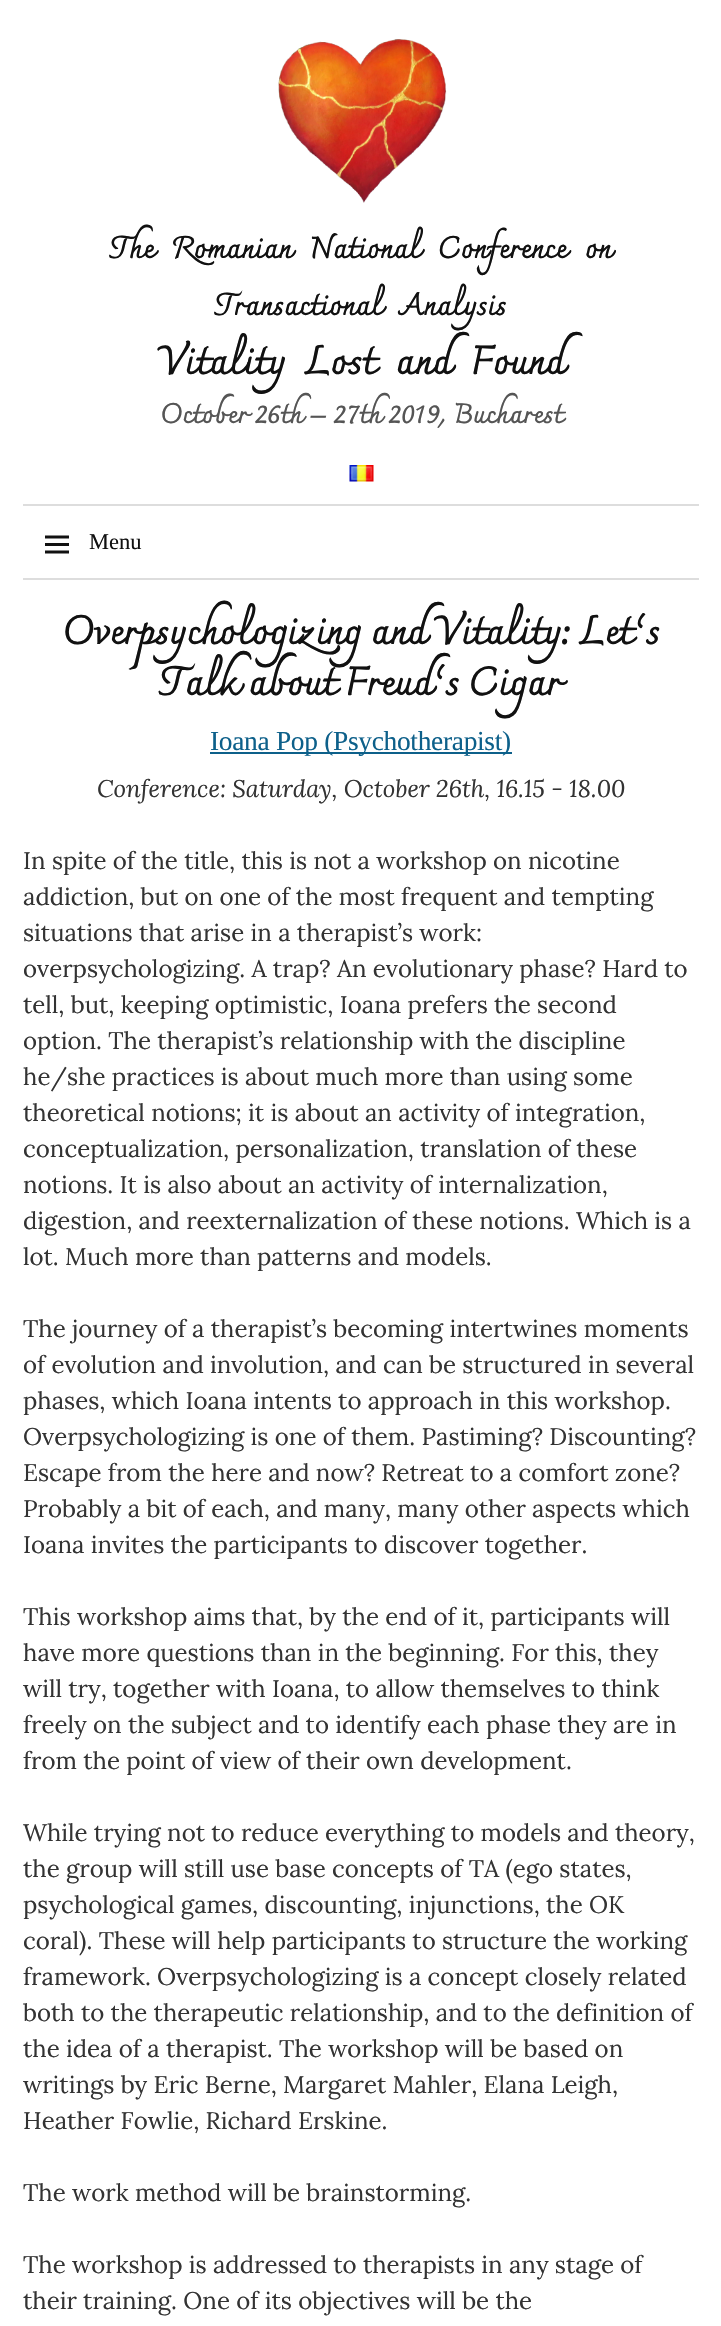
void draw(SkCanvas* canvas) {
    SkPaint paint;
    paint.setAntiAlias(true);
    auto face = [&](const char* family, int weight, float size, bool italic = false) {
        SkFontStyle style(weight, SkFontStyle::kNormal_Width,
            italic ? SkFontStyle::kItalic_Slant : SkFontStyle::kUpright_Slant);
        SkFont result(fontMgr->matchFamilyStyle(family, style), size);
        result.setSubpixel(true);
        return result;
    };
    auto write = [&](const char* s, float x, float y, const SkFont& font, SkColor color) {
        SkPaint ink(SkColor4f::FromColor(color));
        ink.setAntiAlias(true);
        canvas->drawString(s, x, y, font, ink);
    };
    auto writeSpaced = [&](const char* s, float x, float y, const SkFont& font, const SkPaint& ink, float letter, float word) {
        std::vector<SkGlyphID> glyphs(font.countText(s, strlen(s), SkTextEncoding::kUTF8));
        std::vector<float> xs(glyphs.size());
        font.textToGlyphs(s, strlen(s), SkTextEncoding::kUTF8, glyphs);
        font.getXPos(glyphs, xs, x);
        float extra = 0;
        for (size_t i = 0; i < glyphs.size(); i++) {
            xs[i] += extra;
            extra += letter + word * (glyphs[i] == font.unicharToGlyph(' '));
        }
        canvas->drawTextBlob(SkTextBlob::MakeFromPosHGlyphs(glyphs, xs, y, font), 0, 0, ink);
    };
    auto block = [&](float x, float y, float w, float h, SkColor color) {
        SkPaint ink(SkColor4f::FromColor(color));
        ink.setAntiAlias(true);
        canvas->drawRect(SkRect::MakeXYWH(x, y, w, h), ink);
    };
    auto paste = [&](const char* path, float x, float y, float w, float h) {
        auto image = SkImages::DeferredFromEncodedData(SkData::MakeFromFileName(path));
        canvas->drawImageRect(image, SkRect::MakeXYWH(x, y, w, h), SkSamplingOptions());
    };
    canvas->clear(SK_ColorWHITE);
    paste("pic1.png", 278, 39, 169, 164);
    auto kFont1 = face("Charmonman", 700, 30);
    paint.setColor(SkColorSetRGB(17, 17, 17));
    writeSpaced("The Romanian National Conference on", 111, 258, kFont1, paint, -0.3f, 10.5f);
    writeSpaced("Transactional Analysis", 216, 315, kFont1, paint, -0.3f, 10.5f);
    auto kFont2 = face("Charmonman", 700, 39);
    writeSpaced("Vitality Lost and Found", 158, 374, kFont2, paint, -0.3f, 10.5f);
    auto kFont3 = face("Charmonman", 700, 27);
    write("October 26th – 27th 2019, Bucharest", 160, 423, kFont3, SkColorSetRGB(85, 85, 85));
    block(23, 578, 676, 2, SkColorSetRGB(221, 221, 221));
    paste("pic2.png", 349, 465, 25, 17);
    block(23, 504, 676, 2, SkColorSetRGB(221, 221, 221));
    paste("pic3.png", 45, 535, 24, 19);
    auto kFont4 = face("Liberation Serif", 400, 22.5f);
    write("Menu", 89, 549, kFont4, SkColorSetRGB(17, 17, 17));
    writeSpaced("Overpsychologizing and Vitality: Let’s", 62, 644, kFont2, paint, -0.4f, 0);
    writeSpaced("Talk about Freud’s Cigar", 161, 695, kFont2, paint, -0.4f, 0);
    block(210, 752, 302, 2, SkColorSetRGB(13, 96, 138));
    auto kFont5 = face("Liberation Serif", 400, 27.4f);
    paint.setColor(SkColorSetRGB(13, 96, 138));
    writeSpaced("Ioana Pop (Psychotherapist)", 210, 750, kFont5, paint, -0.3f, 0);
    auto kFont6 = face("Lora", 400, 24, true);
    write("Conference: Saturday, October 26th, 16.15 - 18.00", 97, 797, kFont6, SkColorSetRGB(51, 51, 51));
    auto kFont7 = face("Lora", 400, 24);
    write("In spite of the title, this is not a workshop on nicotine", 23, 869, kFont7, SkColorSetRGB(51, 51, 51));
    write("addiction, but on one of the most frequent and tempting", 23, 905, kFont7, SkColorSetRGB(51, 51, 51));
    write("situations that arise in a therapist’s work:", 23, 941, kFont7, SkColorSetRGB(51, 51, 51));
    write("overpsychologizing. A trap? An evolutionary phase? Hard to", 23, 977, kFont7, SkColorSetRGB(51, 51, 51));
    write("tell, but, keeping optimistic, Ioana prefers the second", 23, 1013, kFont7, SkColorSetRGB(51, 51, 51));
    write("option. The therapist’s relationship with the discipline", 23, 1049, kFont7, SkColorSetRGB(51, 51, 51));
    write("he/she practices is about much more than using some", 23, 1085, kFont7, SkColorSetRGB(51, 51, 51));
    write("theoretical notions; it is about an activity of integration,", 23, 1121, kFont7, SkColorSetRGB(51, 51, 51));
    write("conceptualization, personalization, translation of these", 23, 1157, kFont7, SkColorSetRGB(51, 51, 51));
    write("notions. It is also about an activity of internalization,", 23, 1193, kFont7, SkColorSetRGB(51, 51, 51));
    write("digestion, and reexternalization of these notions. Which is a", 23, 1229, kFont7, SkColorSetRGB(51, 51, 51));
    write("lot. Much more than patterns and models.", 23, 1265, kFont7, SkColorSetRGB(51, 51, 51));
    write("The journey of a therapist’s becoming intertwines moments", 23, 1337, kFont7, SkColorSetRGB(51, 51, 51));
    write("of evolution and involution, and can be structured in several", 23, 1373, kFont7, SkColorSetRGB(51, 51, 51));
    write("phases, which Ioana intents to approach in this workshop.", 23, 1409, kFont7, SkColorSetRGB(51, 51, 51));
    write("Overpsychologizing is one of them. Pastiming? Discounting?", 23, 1445, kFont7, SkColorSetRGB(51, 51, 51));
    write("Escape from the here and now? Retreat to a comfort zone?", 23, 1481, kFont7, SkColorSetRGB(51, 51, 51));
    write("Probably a bit of each, and many, many other aspects which", 23, 1517, kFont7, SkColorSetRGB(51, 51, 51));
    write("Ioana invites the participants to discover together.", 23, 1553, kFont7, SkColorSetRGB(51, 51, 51));
    write("This workshop aims that, by the end of it, participants will", 23, 1625, kFont7, SkColorSetRGB(51, 51, 51));
    write("have more questions than in the beginning. For this, they", 23, 1661, kFont7, SkColorSetRGB(51, 51, 51));
    write("will try, together with Ioana, to allow themselves to think", 23, 1697, kFont7, SkColorSetRGB(51, 51, 51));
    write("freely on the subject and to identify each phase they are in", 23, 1733, kFont7, SkColorSetRGB(51, 51, 51));
    write("from the point of view of their own development.", 23, 1769, kFont7, SkColorSetRGB(51, 51, 51));
    write("While trying not to reduce everything to models and theory,", 23, 1841, kFont7, SkColorSetRGB(51, 51, 51));
    write("the group will still use base concepts of TA (ego states,", 23, 1877, kFont7, SkColorSetRGB(51, 51, 51));
    write("psychological games, discounting, injunctions, the OK", 23, 1913, kFont7, SkColorSetRGB(51, 51, 51));
    write("coral). These will help participants to structure the working", 23, 1949, kFont7, SkColorSetRGB(51, 51, 51));
    write("framework. Overpsychologizing is a concept closely related", 23, 1985, kFont7, SkColorSetRGB(51, 51, 51));
    write("both to the therapeutic relationship, and to the definition of", 23, 2021, kFont7, SkColorSetRGB(51, 51, 51));
    write("the idea of a therapist. The workshop will be based on", 23, 2057, kFont7, SkColorSetRGB(51, 51, 51));
    write("writings by Eric Berne, Margaret Mahler, Elana Leigh,", 23, 2093, kFont7, SkColorSetRGB(51, 51, 51));
    write("Heather Fowlie, Richard Erskine.", 23, 2129, kFont7, SkColorSetRGB(51, 51, 51));
    write("The work method will be brainstorming.", 23, 2201, kFont7, SkColorSetRGB(51, 51, 51));
    write("The workshop is addressed to therapists in any stage of", 23, 2273, kFont7, SkColorSetRGB(51, 51, 51));
    write("their training. One of its objectives will be the", 23, 2309, kFont7, SkColorSetRGB(51, 51, 51));
}
